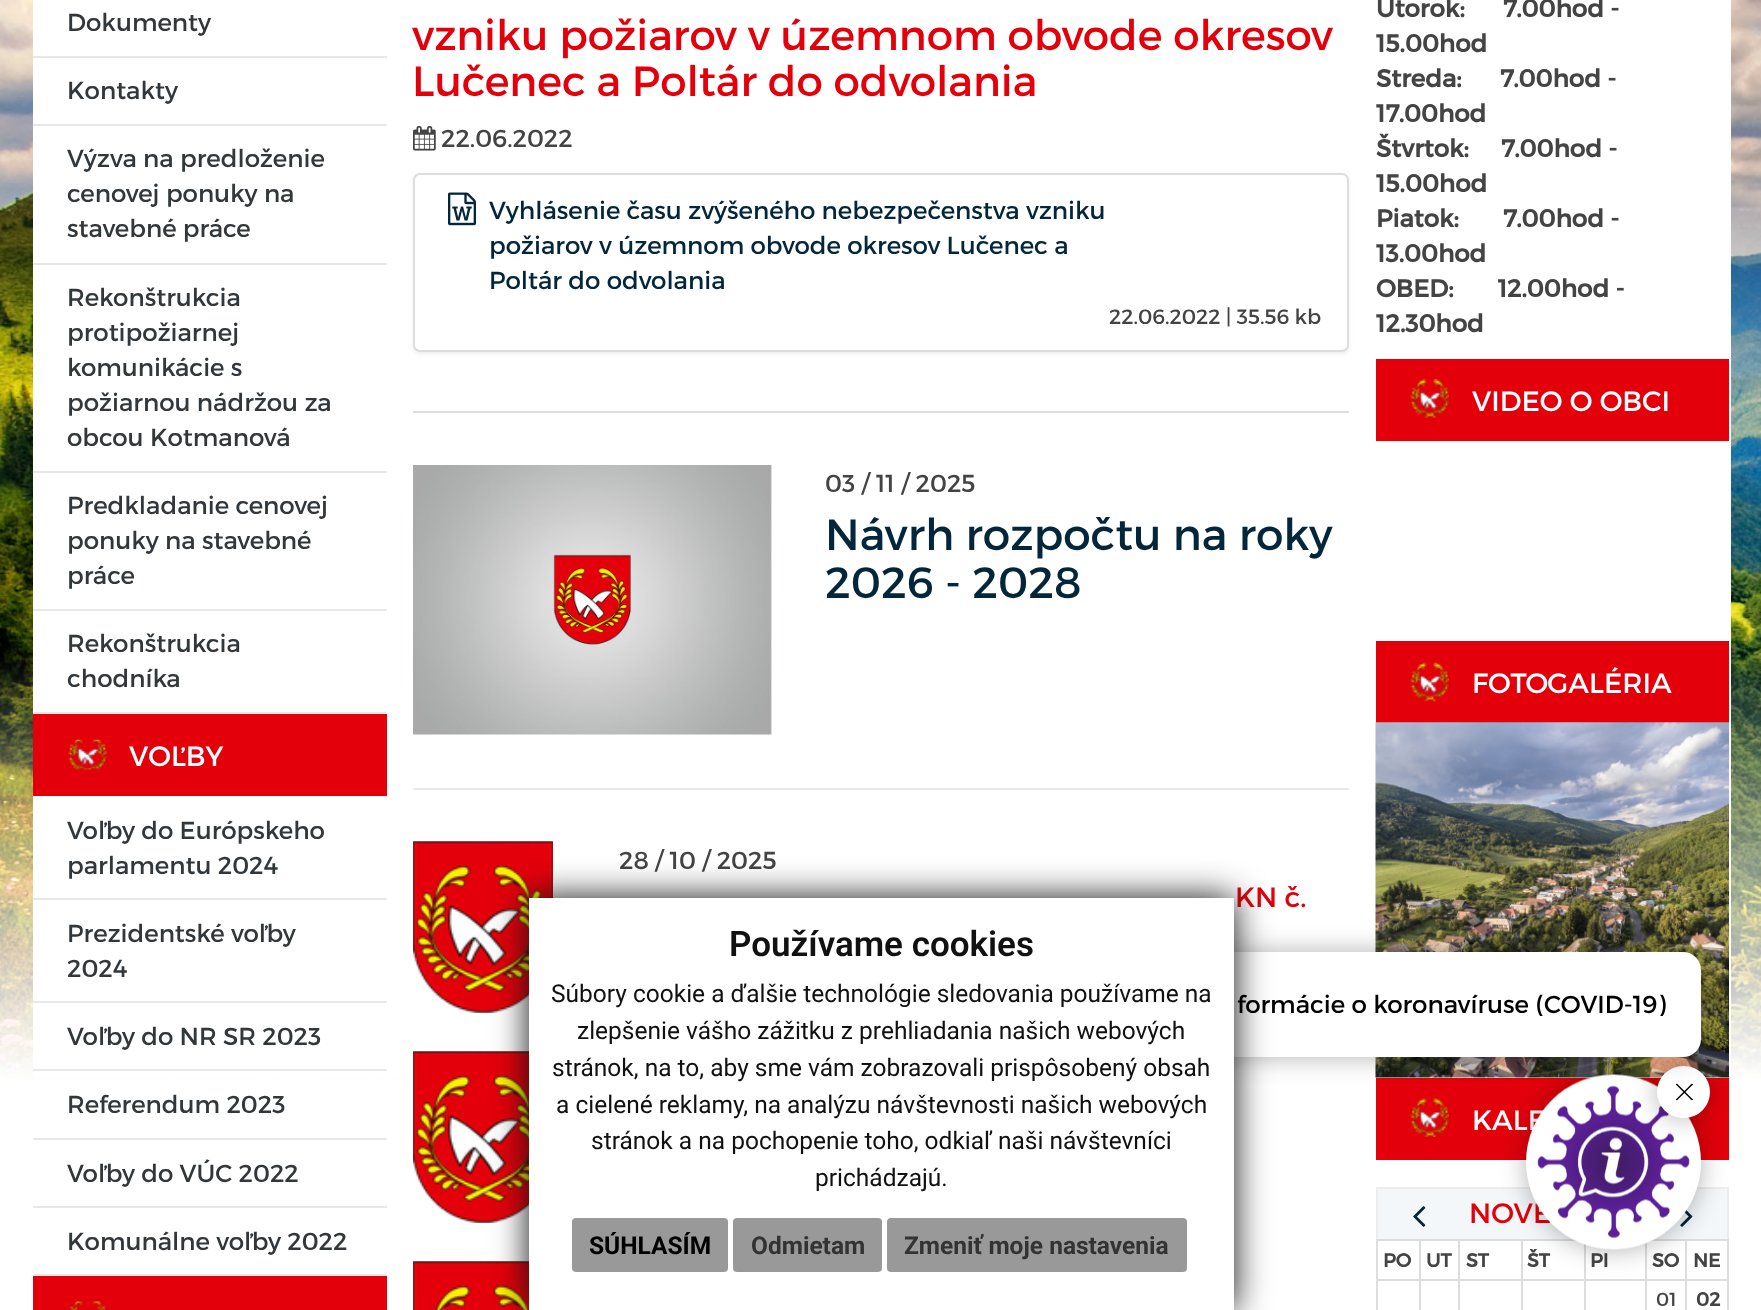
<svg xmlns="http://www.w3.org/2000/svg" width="1761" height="1310">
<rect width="100%" height="100%" fill="#fff"/>
<image x="0" y="0" width="1761" height="1310" href="media/1.png"/>
<rect x="33" width="1698" height="1078" fill="#fff"/>
<rect x="33" y="56" width="354" height="2" fill="#e8e8e8"/>
<text x="67" y="31" style="font-family:Montserrat;font-size:24.5px;fill:#32373b">Dokumenty</text>
<rect x="33" y="124" width="354" height="2" fill="#e8e8e8"/>
<text x="67" y="99" style="font-family:Montserrat;font-size:24.5px;fill:#32373b">Kontakty</text>
<rect x="33" y="263" width="354" height="2" fill="#e8e8e8"/>
<text x="67" y="167" style="font-family:Montserrat;font-size:24.5px;fill:#32373b">Výzva na predloženie</text>
<text x="67" y="202" style="font-family:Montserrat;font-size:24.5px;fill:#32373b">cenovej ponuky na</text>
<text x="67" y="237" style="font-family:Montserrat;font-size:24.5px;fill:#32373b">stavebné práce</text>
<rect x="33" y="471" width="354" height="2" fill="#e8e8e8"/>
<text x="67" y="306" style="font-family:Montserrat;font-size:24.5px;fill:#32373b">Rekonštrukcia</text>
<text x="67" y="341" style="font-family:Montserrat;font-size:24.5px;fill:#32373b">protipožiarnej</text>
<text x="67" y="376" style="font-family:Montserrat;font-size:24.5px;fill:#32373b">komunikácie s</text>
<text x="67" y="411" style="font-family:Montserrat;font-size:24.5px;fill:#32373b">požiarnou nádržou za</text>
<text x="67" y="446" style="font-family:Montserrat;font-size:24.5px;fill:#32373b">obcou Kotmanová</text>
<rect x="33" y="609" width="354" height="2" fill="#e8e8e8"/>
<text x="67" y="514" style="font-family:Montserrat;font-size:24.5px;fill:#32373b">Predkladanie cenovej</text>
<text x="67" y="549" style="font-family:Montserrat;font-size:24.5px;fill:#32373b">ponuky na stavebné</text>
<text x="67" y="584" style="font-family:Montserrat;font-size:24.5px;fill:#32373b">práce</text>
<rect x="33" y="712" width="354" height="2" fill="#e8e8e8"/>
<text x="67" y="652" style="font-family:Montserrat;font-size:24.5px;fill:#32373b">Rekonštrukcia</text>
<text x="67" y="687" style="font-family:Montserrat;font-size:24.5px;fill:#32373b">chodníka</text>
<rect x="33" y="714" width="354" height="82" fill="#e3000b"/>
<image x="68" y="739" width="39" height="31" href="media/2.png"/>
<text x="129" y="766" style="font-family:Montserrat;font-size:28px;fill:#fff">VOĽBY</text>
<rect x="33" y="898" width="354" height="2" fill="#e8e8e8"/>
<text x="67" y="839" style="font-family:Montserrat;font-size:24.5px;fill:#32373b">Voľby do Európskeho</text>
<text x="67" y="874" style="font-family:Montserrat;font-size:24.5px;fill:#32373b">parlamentu 2024</text>
<rect x="33" y="1001" width="354" height="2" fill="#e8e8e8"/>
<text x="67" y="942" style="font-family:Montserrat;font-size:24.5px;fill:#32373b">Prezidentské voľby</text>
<text x="67" y="977" style="font-family:Montserrat;font-size:24.5px;fill:#32373b">2024</text>
<rect x="33" y="1069" width="354" height="2" fill="#e8e8e8"/>
<text x="67" y="1045" style="font-family:Montserrat;font-size:24.5px;fill:#32373b">Voľby do NR SR 2023</text>
<rect x="33" y="1138" width="354" height="2" fill="#e8e8e8"/>
<text x="67" y="1113" style="font-family:Montserrat;font-size:24.5px;fill:#32373b">Referendum 2023</text>
<rect x="33" y="1206" width="354" height="2" fill="#e8e8e8"/>
<text x="67" y="1182" style="font-family:Montserrat;font-size:24.5px;fill:#32373b">Voľby do VÚC 2022</text>
<rect x="33" y="1274" width="354" height="2" fill="#e8e8e8"/>
<text x="67" y="1250" style="font-family:Montserrat;font-size:24.5px;fill:#32373b">Komunálne voľby 2022</text>
<rect x="33" y="1276" width="354" height="34" fill="#e3000b"/>
<image x="69" y="1301" width="38" height="9" href="media/3.png"/>
<text x="412" y="50" style="font-family:Montserrat;font-size:42px;fill:#e3000b">vzniku požiarov v územnom obvode okresov</text>
<text x="412" y="96" style="font-family:Montserrat;font-size:42px;fill:#e3000b">Lučenec a Poltár do odvolania</text>
<image x="413" y="126" width="23" height="25" href="media/4.png"/>
<text x="441" y="147" style="font-family:Montserrat;font-size:24.5px;fill:#444">22.06.2022</text>
<rect x="413" y="175" width="936" height="179" rx="7" fill="#00000012" filter="blur(2px)"/>
<rect x="414" y="174" width="934" height="177" rx="6" fill="#fff" stroke="#ddd" stroke-width="2"/>
<image x="448" y="192" width="28" height="34" href="media/5.png"/>
<text x="489" y="219" style="font-family:Montserrat;font-size:24.5px;fill:#04263b">Vyhlásenie času zvýšeného nebezpečenstva vzniku</text>
<text x="489" y="254" style="font-family:Montserrat;font-size:24.5px;fill:#04263b">požiarov v územnom obvode okresov Lučenec a</text>
<text x="489" y="289" style="font-family:Montserrat;font-size:24.5px;fill:#04263b">Poltár do odvolania</text>
<text x="1109" y="324" style="font-family:Montserrat;font-size:20.75px;fill:#444">22.06.2022 | 35.56 kb</text>
<rect x="413" y="411" width="936" height="2" fill="#ddd"/>
<image x="413" y="465" width="359" height="270" href="media/6.png"/>
<text x="825" y="492" style="font-family:Montserrat;font-size:24.5px;fill:#444">03 / 11 / 2025</text>
<text x="825" y="550" style="font-family:Montserrat;font-size:43.75px;fill:#04263b">Návrh rozpočtu na roky</text>
<text x="825" y="598" style="font-family:Montserrat;font-size:43.75px;fill:#04263b">2026 - 2028</text>
<rect x="413" y="788" width="936" height="2" fill="#e9e9e9"/>
<image x="413" y="841" width="140" height="172" href="media/7.png"/>
<text x="619" y="869" style="font-family:Montserrat;font-size:24.5px;fill:#444">28 / 10 / 2025</text>
<text x="1235" y="907" style="font-family:Montserrat;font-size:28px;fill:#e3000b">KN č.</text>
<image x="413" y="1051" width="116" height="172" href="media/8.png"/>
<image x="413" y="1261" width="116" height="49" href="media/9.png"/>
<text x="1376" y="17" style="font-family:Montserrat;font-size:24.5px;font-weight:bold;fill:#444">Utorok:</text>
<text x="1503" y="17" style="font-family:Montserrat;font-size:24.5px;font-weight:bold;fill:#444">7.00hod -</text>
<text x="1376" y="52" style="font-family:Montserrat;font-size:24.5px;font-weight:bold;fill:#444">15.00hod</text>
<text x="1376" y="87" style="font-family:Montserrat;font-size:24.5px;font-weight:bold;fill:#444">Streda:</text>
<text x="1500" y="87" style="font-family:Montserrat;font-size:24.5px;font-weight:bold;fill:#444">7.00hod -</text>
<text x="1376" y="122" style="font-family:Montserrat;font-size:24.5px;font-weight:bold;fill:#444">17.00hod</text>
<text x="1376" y="157" style="font-family:Montserrat;font-size:24.5px;font-weight:bold;fill:#444">Štvrtok:</text>
<text x="1501" y="157" style="font-family:Montserrat;font-size:24.5px;font-weight:bold;fill:#444">7.00hod -</text>
<text x="1376" y="192" style="font-family:Montserrat;font-size:24.5px;font-weight:bold;fill:#444">15.00hod</text>
<text x="1376" y="227" style="font-family:Montserrat;font-size:24.5px;font-weight:bold;fill:#444">Piatok:</text>
<text x="1503" y="227" style="font-family:Montserrat;font-size:24.5px;font-weight:bold;fill:#444">7.00hod -</text>
<text x="1376" y="262" style="font-family:Montserrat;font-size:24.5px;font-weight:bold;fill:#444">13.00hod</text>
<text x="1376" y="297" style="font-family:Montserrat;font-size:24.5px;font-weight:bold;fill:#444" xml:space="preserve">OBED:       12.00hod -</text>
<text x="1376" y="332" style="font-family:Montserrat;font-size:24.5px;font-weight:bold;fill:#444">12.30hod</text>
<rect x="1376" y="359" width="353" height="82" fill="#e3000b"/>
<image x="1410" y="379" width="39" height="39" href="media/10.png"/>
<text x="1472" y="411" style="font-family:Montserrat;font-size:28px;fill:#fff">VIDEO O OBCI</text>
<rect x="1376" y="641" width="353" height="82" fill="#e3000b"/>
<image x="1410" y="662" width="39" height="40" href="media/11.png"/>
<text x="1472" y="693" style="font-family:Montserrat;font-size:28px;fill:#fff">FOTOGALÉRIA</text>
<image x="1375" y="722" width="354" height="356" href="media/12.png"/>
<rect x="1376" y="1078" width="353" height="82" fill="#e3000b"/>
<image x="1410" y="1098" width="39" height="39" href="media/13.png"/>
<text x="1472" y="1130" style="font-family:Montserrat;font-size:28px;fill:#fff">KALE</text>
<rect x="1376" y="1187" width="353" height="2" fill="#ededed"/>
<rect x="1727" y="1187" width="2" height="52" fill="#ededed"/>
<rect x="1376" y="1187" width="2" height="52" fill="#ededed"/>
<rect x="1378" y="1189" width="195" height="50" fill="#f4f7f9"/>
<image x="1413" y="1206" width="13" height="21" href="media/14.png"/>
<rect x="1654" y="1189" width="73" height="50" fill="#f4f7f9"/>
<image x="1680" y="1210" width="13" height="17" href="media/15.png"/>
<text x="1469" y="1223" style="font-family:Montserrat;font-size:28px;fill:#e3000b">NOVE</text>
<rect x="1685" y="1279" width="44" height="2" fill="#ddd"/>
<rect x="1685" y="1279" width="2" height="31" fill="#ddd"/>
<rect x="1645" y="1279" width="42" height="2" fill="#ddd"/>
<rect x="1645" y="1279" width="2" height="31" fill="#ddd"/>
<rect x="1584" y="1279" width="63" height="2" fill="#ddd"/>
<rect x="1584" y="1279" width="2" height="31" fill="#ddd"/>
<rect x="1521" y="1279" width="65" height="2" fill="#ddd"/>
<rect x="1584" y="1239" width="2" height="42" fill="#ddd"/>
<rect x="1521" y="1239" width="65" height="2" fill="#ddd"/>
<rect x="1521" y="1279" width="2" height="31" fill="#ddd"/>
<rect x="1458" y="1279" width="65" height="2" fill="#ddd"/>
<rect x="1521" y="1239" width="2" height="42" fill="#ddd"/>
<rect x="1458" y="1239" width="65" height="2" fill="#ddd"/>
<rect x="1458" y="1279" width="2" height="31" fill="#ddd"/>
<rect x="1419" y="1279" width="41" height="2" fill="#ddd"/>
<rect x="1458" y="1239" width="2" height="42" fill="#ddd"/>
<rect x="1419" y="1239" width="41" height="2" fill="#ddd"/>
<rect x="1419" y="1279" width="2" height="31" fill="#ddd"/>
<rect x="1376" y="1279" width="45" height="2" fill="#ddd"/>
<rect x="1419" y="1239" width="2" height="42" fill="#ddd"/>
<rect x="1376" y="1239" width="45" height="2" fill="#ddd"/>
<rect x="1376" y="1279" width="2" height="31" fill="#ddd"/>
<rect x="1376" y="1239" width="2" height="42" fill="#ddd"/>
<text x="1383" y="1267" style="font-family:Montserrat;font-size:19px;font-weight:bold;fill:#444">PO</text>
<text x="1426" y="1267" style="font-family:Montserrat;font-size:19px;font-weight:bold;fill:#444">UT</text>
<text x="1466" y="1267" style="font-family:Montserrat;font-size:19px;font-weight:bold;fill:#444">ST</text>
<text x="1527" y="1267" style="font-family:Montserrat;font-size:19px;font-weight:bold;fill:#444">ŠT</text>
<text x="1590" y="1267" style="font-family:Montserrat;font-size:19px;font-weight:bold;fill:#444">PI</text>
<rect x="1685" y="1239" width="44" height="2" fill="#ddd"/>
<rect x="1685" y="1239" width="2" height="42" fill="#ddd"/>
<rect x="1645" y="1239" width="42" height="2" fill="#ddd"/>
<rect x="1645" y="1239" width="2" height="42" fill="#ddd"/>
<text x="1652" y="1267" style="font-family:Montserrat;font-size:19px;font-weight:bold;fill:#444">SO</text>
<rect x="1727" y="1279" width="2" height="31" fill="#ddd"/>
<rect x="1727" y="1239" width="2" height="42" fill="#ddd"/>
<text x="1693" y="1267" style="font-family:Montserrat;font-size:19px;font-weight:bold;fill:#444">NE</text>
<text x="1656" y="1306" style="font-family:Montserrat;font-size:19px;fill:#444">01</text>
<text x="1696" y="1306" style="font-family:Montserrat;font-size:19px;font-weight:bold;fill:#444">02</text>
<rect x="1526" y="1075" width="175" height="175" rx="87.5" fill="#0000004d" filter="blur(13px)"/>
<image x="1526" y="1074" width="175" height="176" href="media/17.png"/>
<rect x="1657" y="1066" width="53" height="52" rx="26" fill="#0000004d" filter="blur(13px)"/>
<rect x="1657" y="1066" width="53" height="52" rx="26" fill="#fff"/>
<image x="1675" y="1083" width="18" height="18" href="media/16.png"/>
<rect x="1073" y="952" width="628" height="105" rx="18" fill="#0000004d" filter="blur(13px)"/>
<rect x="1073" y="952" width="628" height="105" rx="18" fill="#fff"/>
<rect x="529" y="898" width="705" height="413" fill="#111" filter="blur(17.5px)"/>
<rect x="529" y="898" width="705" height="412" fill="#fff"/>
<text x="729" y="956" style="font-family:Roboto;font-size:35px;font-weight:600;fill:#111">Používame cookies</text>
<text x="551" y="1002" style="font-family:Roboto;font-size:24.5px;fill:#111">Súbory cookie a ďalšie technológie sledovania používame na</text>
<text x="577" y="1039" style="font-family:Roboto;font-size:24.5px;fill:#111">zlepšenie vášho zážitku z prehliadania našich webových</text>
<text x="552" y="1076" style="font-family:Roboto;font-size:24.5px;fill:#111">stránok, na to, aby sme vám zobrazovali prispôsobený obsah</text>
<text x="556" y="1113" style="font-family:Roboto;font-size:24.5px;fill:#111">a cielené reklamy, na analýzu návštevnosti našich webových</text>
<text x="591" y="1149" style="font-family:Roboto;font-size:24.5px;fill:#111">stránok a na pochopenie toho, odkiaľ naši návštevníci</text>
<text x="815" y="1186" style="font-family:Roboto;font-size:24.5px;fill:#111">prichádzajú.</text>
<rect x="572" y="1218" width="156" height="54" rx="4" fill="#999"/>
<text x="589" y="1254" style="font-family:Roboto;font-size:24.5px;font-weight:bold;fill:#000">SÚHLASÍM</text>
<rect x="733" y="1218" width="149" height="54" rx="4" fill="#999"/>
<text x="751" y="1254" style="font-family:Roboto;font-size:24.5px;font-weight:bold;fill:#333">Odmietam</text>
<rect x="887" y="1218" width="300" height="54" rx="4" fill="#999"/>
<text x="904" y="1254" style="font-family:Roboto;font-size:24.5px;font-weight:bold;fill:#333">Zmeniť moje nastavenia</text>
<text x="1237" y="1013" style="font-family:Montserrat;font-size:24.5px;fill:#000">formácie o koronavíruse (COVID-19)</text>
</svg>
